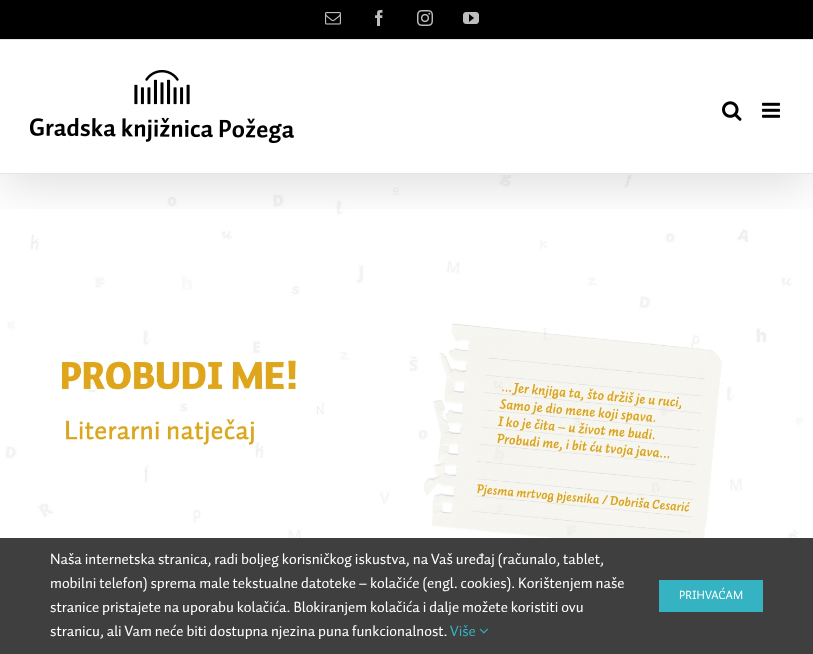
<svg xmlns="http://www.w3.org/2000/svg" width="813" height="654">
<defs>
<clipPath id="clip1"><rect x="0" y="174" width="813" height="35"/></clipPath>
</defs>
<rect width="100%" height="100%" fill="#fff"/>
<image x="0" y="175" width="813" height="363" href="media/8.png"/>
<g clip-path="url(#clip1)">
<rect x="2" y="12" width="809" height="170" fill="#00000024" filter="blur(25px)"/>
</g>
<rect width="813" height="39" fill="#000"/>
<rect y="39" width="813" height="1" fill="#e5e5e5"/>
<image x="325" y="12" width="16" height="13" href="media/1.png"/>
<image x="375" y="10" width="8" height="16" href="media/2.png"/>
<image x="417" y="10" width="16" height="16" href="media/3.png"/>
<image x="463" y="12" width="16" height="12" href="media/4.png"/>
<rect y="173" width="813" height="1" fill="#e5e5e5"/>
<image x="30" y="70" width="264" height="73" href="media/5.png"/>
<image x="722" y="101" width="20" height="20" href="media/6.png"/>
<image x="762" y="102" width="18" height="16" href="media/7.png"/>
<rect y="538" width="813" height="116" fill="#3f3f3f"/>
<text x="50" y="564" style="font-family:'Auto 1';font-size:15px;fill:#fff">Naša internetska stranica, radi boljeg korisničkog iskustva, na Vaš uređaj (računalo, tablet,</text>
<text x="50" y="588" style="font-family:'Auto 1';font-size:15px;fill:#fff">mobilni telefon) sprema male tekstualne datoteke – kolačiće (engl. cookies). Korištenjem naše</text>
<text x="50" y="612" style="font-family:'Auto 1';font-size:15px;fill:#fff">stranice pristajete na uporabu kolačića. Blokiranjem kolačića i dalje možete koristiti ovu</text>
<text x="50" y="636" style="font-family:'Auto 1';font-size:15px;fill:#fff">stranicu, ali Vam neće biti dostupna njezina puna funkcionalnost.</text>
<text x="450" y="636" style="font-family:'Auto 1';font-size:15px;fill:#35b3c2">Više</text>
<image x="479" y="628" width="9" height="6" href="media/9.png"/>
<rect x="659" y="580" width="104" height="32" fill="#35b3c2"/>
<text x="679" y="599" style="font-family:'Auto 1';font-size:12px;fill:#fff">PRIHVAĆAM</text>
</svg>
